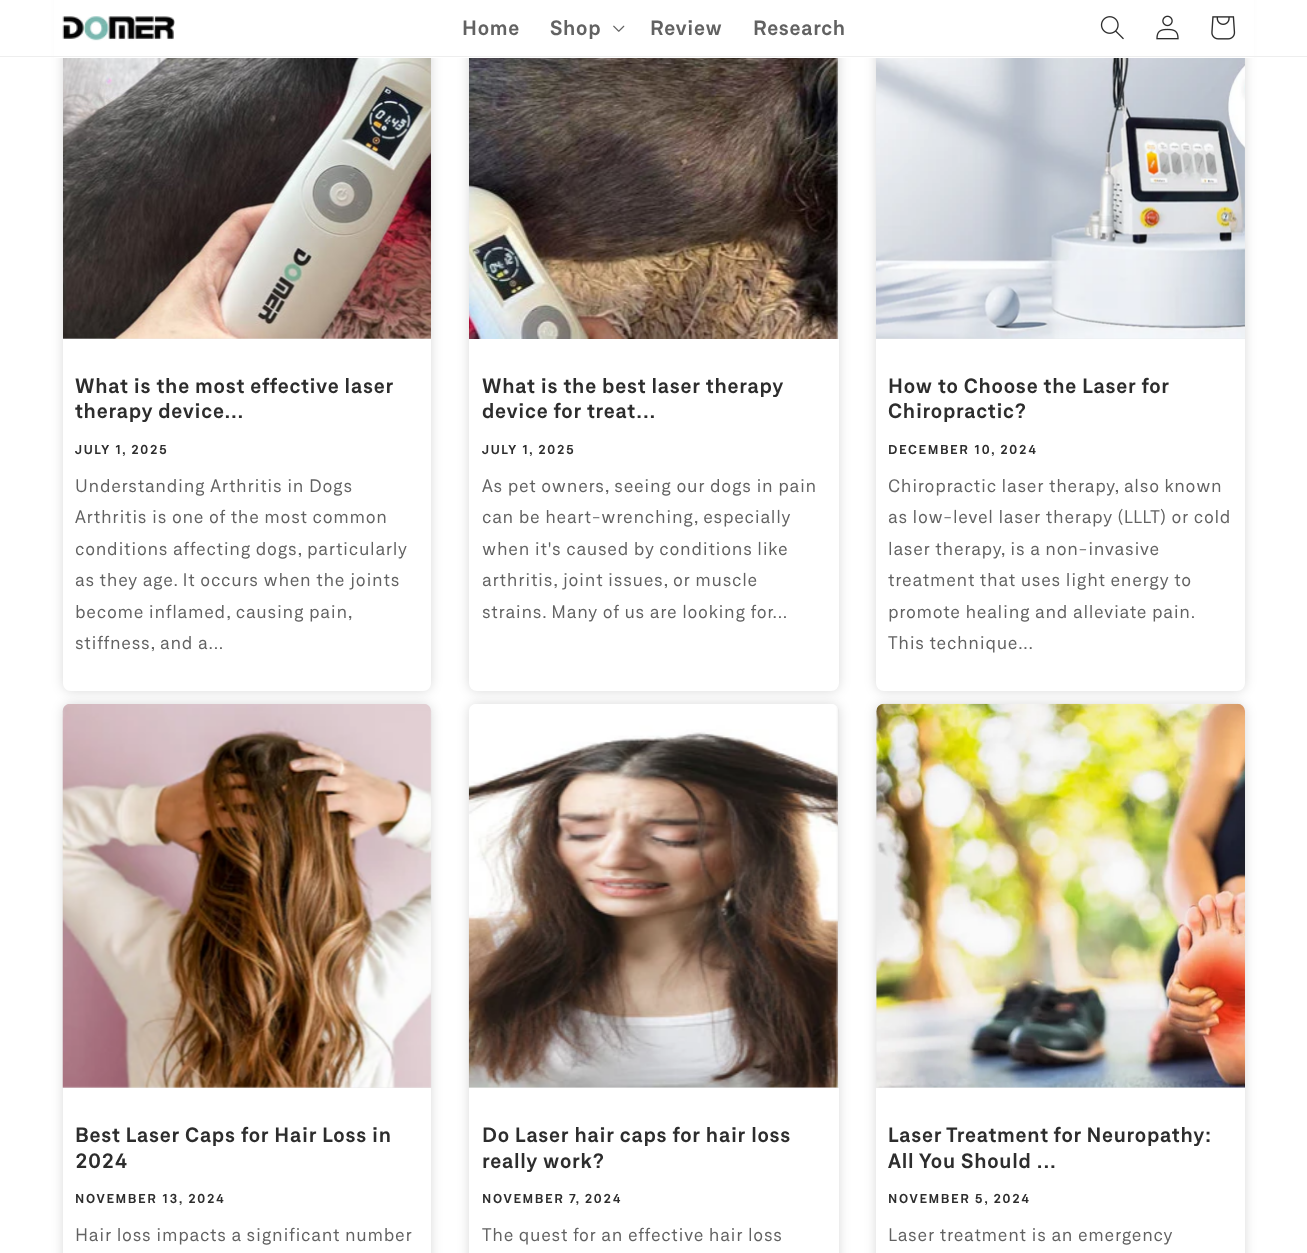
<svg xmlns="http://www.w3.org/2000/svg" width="1307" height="1253">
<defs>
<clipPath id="clip1"><path d="M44 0h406v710h-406zm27-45h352c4.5 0 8 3.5 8 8v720c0 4.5-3.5 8-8 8h-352c-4.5 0-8-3.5-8-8v-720c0-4.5 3.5-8 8-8z" clip-rule="evenodd"/></clipPath>
<clipPath id="clip2"><path d="M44 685h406v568h-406zm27 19h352c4.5 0 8 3.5 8 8v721c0 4.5-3.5 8-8 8h-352c-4.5 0-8-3.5-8-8v-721c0-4.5 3.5-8 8-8z" clip-rule="evenodd"/></clipPath>
</defs>
<rect width="100%" height="100%" fill="#fff"/>
<g clip-path="url(#clip1)">
<rect x="63" y="-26" width="368" height="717" rx="8" fill="#00000026" filter="blur(6px)"/>
</g>
<rect x="469" y="-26" width="370" height="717" rx="8" fill="#00000026" filter="blur(6px)"/>
<rect x="469" y="-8" width="370" height="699" rx="8" fill="#fff"/>
<rect x="876" y="-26" width="369" height="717" rx="8" fill="#00000026" filter="blur(6px)"/>
<rect x="876" y="-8" width="369" height="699" rx="8" fill="#fff"/>
<rect x="54" width="1200" height="58" fill="#fff"/>
<rect y="56" width="1307" height="1" fill="#eee"/>
<image x="62" y="16" width="113" height="25" href="media/1.png"/>
<text x="462" y="35" style="font-family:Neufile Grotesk;font-size:20px;font-weight:600;letter-spacing:0.75px;fill:#626262">Home</text>
<text x="550" y="35" style="font-family:Neufile Grotesk;font-size:20px;font-weight:600;letter-spacing:0.75px;fill:#626262">Shop</text>
<image x="613" y="25" width="12" height="7" href="media/2.png"/>
<text x="650" y="35" style="font-family:Neufile Grotesk;font-size:20px;font-weight:600;letter-spacing:0.75px;fill:#626262">Review</text>
<text x="753" y="35" style="font-family:Neufile Grotesk;font-size:20px;font-weight:600;letter-spacing:0.75px;fill:#626262">Research</text>
<image x="1100" y="16" width="24" height="24" href="media/3.png"/>
<image x="1156" y="15" width="23" height="25" href="media/4.png"/>
<image x="1211" y="16" width="25" height="24" href="media/5.png"/>
<rect x="63" y="58" width="368" height="281" fill="#eaeaea"/>
<image x="63" y="58" width="368" height="281" href="media/6.png"/>
<text x="75" y="393" style="font-family:Neufile Grotesk;font-size:20px;font-weight:600;letter-spacing:0.8px;fill:#2d2d2d">What is the most effective laser</text>
<text x="75" y="418" style="font-family:Neufile Grotesk;font-size:20px;font-weight:600;letter-spacing:0.8px;fill:#2d2d2d">therapy device...</text>
<text x="75" y="454" style="font-family:Neufile Grotesk;font-size:12.5px;font-weight:600;letter-spacing:1.6px;fill:#2d2d2d">JULY 1, 2025</text>
<text x="75" y="492" style="font-family:Neufile Grotesk;font-size:17.5px;letter-spacing:0.75px;fill:#626262">Understanding Arthritis in Dogs</text>
<text x="75" y="523" style="font-family:Neufile Grotesk;font-size:17.5px;letter-spacing:0.75px;fill:#626262">Arthritis is one of the most common</text>
<text x="75" y="555" style="font-family:Neufile Grotesk;font-size:17.5px;letter-spacing:0.75px;fill:#626262">conditions affecting dogs, particularly</text>
<text x="75" y="586" style="font-family:Neufile Grotesk;font-size:17.5px;letter-spacing:0.75px;fill:#626262">as they age. It occurs when the joints</text>
<text x="75" y="618" style="font-family:Neufile Grotesk;font-size:17.5px;letter-spacing:0.75px;fill:#626262">become inflamed, causing pain,</text>
<text x="75" y="649" style="font-family:Neufile Grotesk;font-size:17.5px;letter-spacing:0.75px;fill:#626262">stiffness, and a...</text>
<rect x="836" y="58" width="3" height="281" fill="#eaeaea"/>
<image x="469" y="58" width="369" height="281" href="media/7.png"/>
<text x="482" y="393" style="font-family:Neufile Grotesk;font-size:20px;font-weight:600;letter-spacing:0.8px;fill:#2d2d2d">What is the best laser therapy</text>
<text x="482" y="418" style="font-family:Neufile Grotesk;font-size:20px;font-weight:600;letter-spacing:0.8px;fill:#2d2d2d">device for treat...</text>
<text x="482" y="454" style="font-family:Neufile Grotesk;font-size:12.5px;font-weight:600;letter-spacing:1.6px;fill:#2d2d2d">JULY 1, 2025</text>
<text x="482" y="492" style="font-family:Neufile Grotesk;font-size:17.5px;letter-spacing:0.75px;fill:#626262">As pet owners, seeing our dogs in pain</text>
<text x="482" y="523" style="font-family:Neufile Grotesk;font-size:17.5px;letter-spacing:0.75px;fill:#626262">can be heart-wrenching, especially</text>
<text x="482" y="555" style="font-family:Neufile Grotesk;font-size:17.5px;letter-spacing:0.75px;fill:#626262">when it's caused by conditions like</text>
<text x="482" y="586" style="font-family:Neufile Grotesk;font-size:17.5px;letter-spacing:0.75px;fill:#626262">arthritis, joint issues, or muscle</text>
<text x="482" y="618" style="font-family:Neufile Grotesk;font-size:17.5px;letter-spacing:0.75px;fill:#626262">strains. Many of us are looking for...</text>
<rect x="876" y="58" width="369" height="281" fill="#eaeaea"/>
<image x="876" y="58" width="369" height="281" href="media/8.png"/>
<text x="888" y="393" style="font-family:Neufile Grotesk;font-size:20px;font-weight:600;letter-spacing:0.8px;fill:#2d2d2d">How to Choose the Laser for</text>
<text x="888" y="418" style="font-family:Neufile Grotesk;font-size:20px;font-weight:600;letter-spacing:0.8px;fill:#2d2d2d">Chiropractic?</text>
<text x="888" y="454" style="font-family:Neufile Grotesk;font-size:12.5px;font-weight:600;letter-spacing:1.6px;fill:#2d2d2d">DECEMBER 10, 2024</text>
<text x="888" y="492" style="font-family:Neufile Grotesk;font-size:17.5px;letter-spacing:0.75px;fill:#626262">Chiropractic laser therapy, also known</text>
<text x="888" y="523" style="font-family:Neufile Grotesk;font-size:17.5px;letter-spacing:0.75px;fill:#626262">as low-level laser therapy (LLLT) or cold</text>
<text x="888" y="555" style="font-family:Neufile Grotesk;font-size:17.5px;letter-spacing:0.75px;fill:#626262">laser therapy, is a non-invasive</text>
<text x="888" y="586" style="font-family:Neufile Grotesk;font-size:17.5px;letter-spacing:0.75px;fill:#626262">treatment that uses light energy to</text>
<text x="888" y="618" style="font-family:Neufile Grotesk;font-size:17.5px;letter-spacing:0.75px;fill:#626262">promote healing and alleviate pain.</text>
<text x="888" y="649" style="font-family:Neufile Grotesk;font-size:17.5px;letter-spacing:0.75px;fill:#626262">This technique...</text>
<g clip-path="url(#clip2)">
<rect x="63" y="704" width="368" height="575" rx="8" fill="#00000026" filter="blur(6px)"/>
</g>
<path d="M71 704h352c4.5 0 8 3.5 8 8v376h-368v-376c0-4.5 3.5-8 8-8z" fill="#eaeaea"/>
<image x="62" y="704" width="370" height="384" href="media/9.png"/>
<text x="75" y="1142" style="font-family:Neufile Grotesk;font-size:20px;font-weight:600;letter-spacing:0.8px;fill:#2d2d2d">Best Laser Caps for Hair Loss in</text>
<text x="75" y="1168" style="font-family:Neufile Grotesk;font-size:20px;font-weight:600;letter-spacing:0.8px;fill:#2d2d2d">2024</text>
<text x="75" y="1203" style="font-family:Neufile Grotesk;font-size:12.5px;font-weight:600;letter-spacing:1.6px;fill:#2d2d2d">NOVEMBER 13, 2024</text>
<text x="75" y="1241" style="font-family:Neufile Grotesk;font-size:17.5px;letter-spacing:0.75px;fill:#626262">Hair loss impacts a significant number</text>
<rect x="469" y="704" width="370" height="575" rx="8" fill="#00000026" filter="blur(6px)"/>
<rect x="469" y="704" width="370" height="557" rx="8" fill="#fff"/>
<path d="M477 704h354c4.5 0 8 3.5 8 8v376h-370v-376c0-4.5 3.5-8 8-8z" fill="#2d2d2d1a"/>
<image x="468" y="704" width="370" height="384" href="media/10.png"/>
<text x="482" y="1142" style="font-family:Neufile Grotesk;font-size:20px;font-weight:600;letter-spacing:0.8px;fill:#2d2d2d">Do Laser hair caps for hair loss</text>
<text x="482" y="1168" style="font-family:Neufile Grotesk;font-size:20px;font-weight:600;letter-spacing:0.8px;fill:#2d2d2d">really work?</text>
<text x="482" y="1203" style="font-family:Neufile Grotesk;font-size:12.5px;font-weight:600;letter-spacing:1.6px;fill:#2d2d2d">NOVEMBER 7, 2024</text>
<text x="482" y="1241" style="font-family:Neufile Grotesk;font-size:17.5px;letter-spacing:0.75px;fill:#626262">The quest for an effective hair loss</text>
<rect x="876" y="704" width="369" height="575" rx="8" fill="#00000026" filter="blur(6px)"/>
<rect x="876" y="704" width="369" height="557" rx="8" fill="#fff"/>
<path d="M884 704h353c4.5 0 8 3.5 8 8v376h-369v-376c0-4.5 3.5-8 8-8z" fill="#2d2d2d1a"/>
<image x="876" y="703" width="369" height="385" href="media/11.png"/>
<text x="888" y="1142" word-spacing="-0.5" style="font-family:Neufile Grotesk;font-size:20px;font-weight:600;letter-spacing:0.8px;fill:#2d2d2d">Laser Treatment for Neuropathy:</text>
<text x="888" y="1168" style="font-family:Neufile Grotesk;font-size:20px;font-weight:600;letter-spacing:0.8px;fill:#2d2d2d">All You Should ...</text>
<text x="888" y="1203" style="font-family:Neufile Grotesk;font-size:12.5px;font-weight:600;letter-spacing:1.6px;fill:#2d2d2d">NOVEMBER 5, 2024</text>
<text x="888" y="1241" style="font-family:Neufile Grotesk;font-size:17.5px;letter-spacing:0.75px;fill:#626262">Laser treatment is an emergency</text>
</svg>
